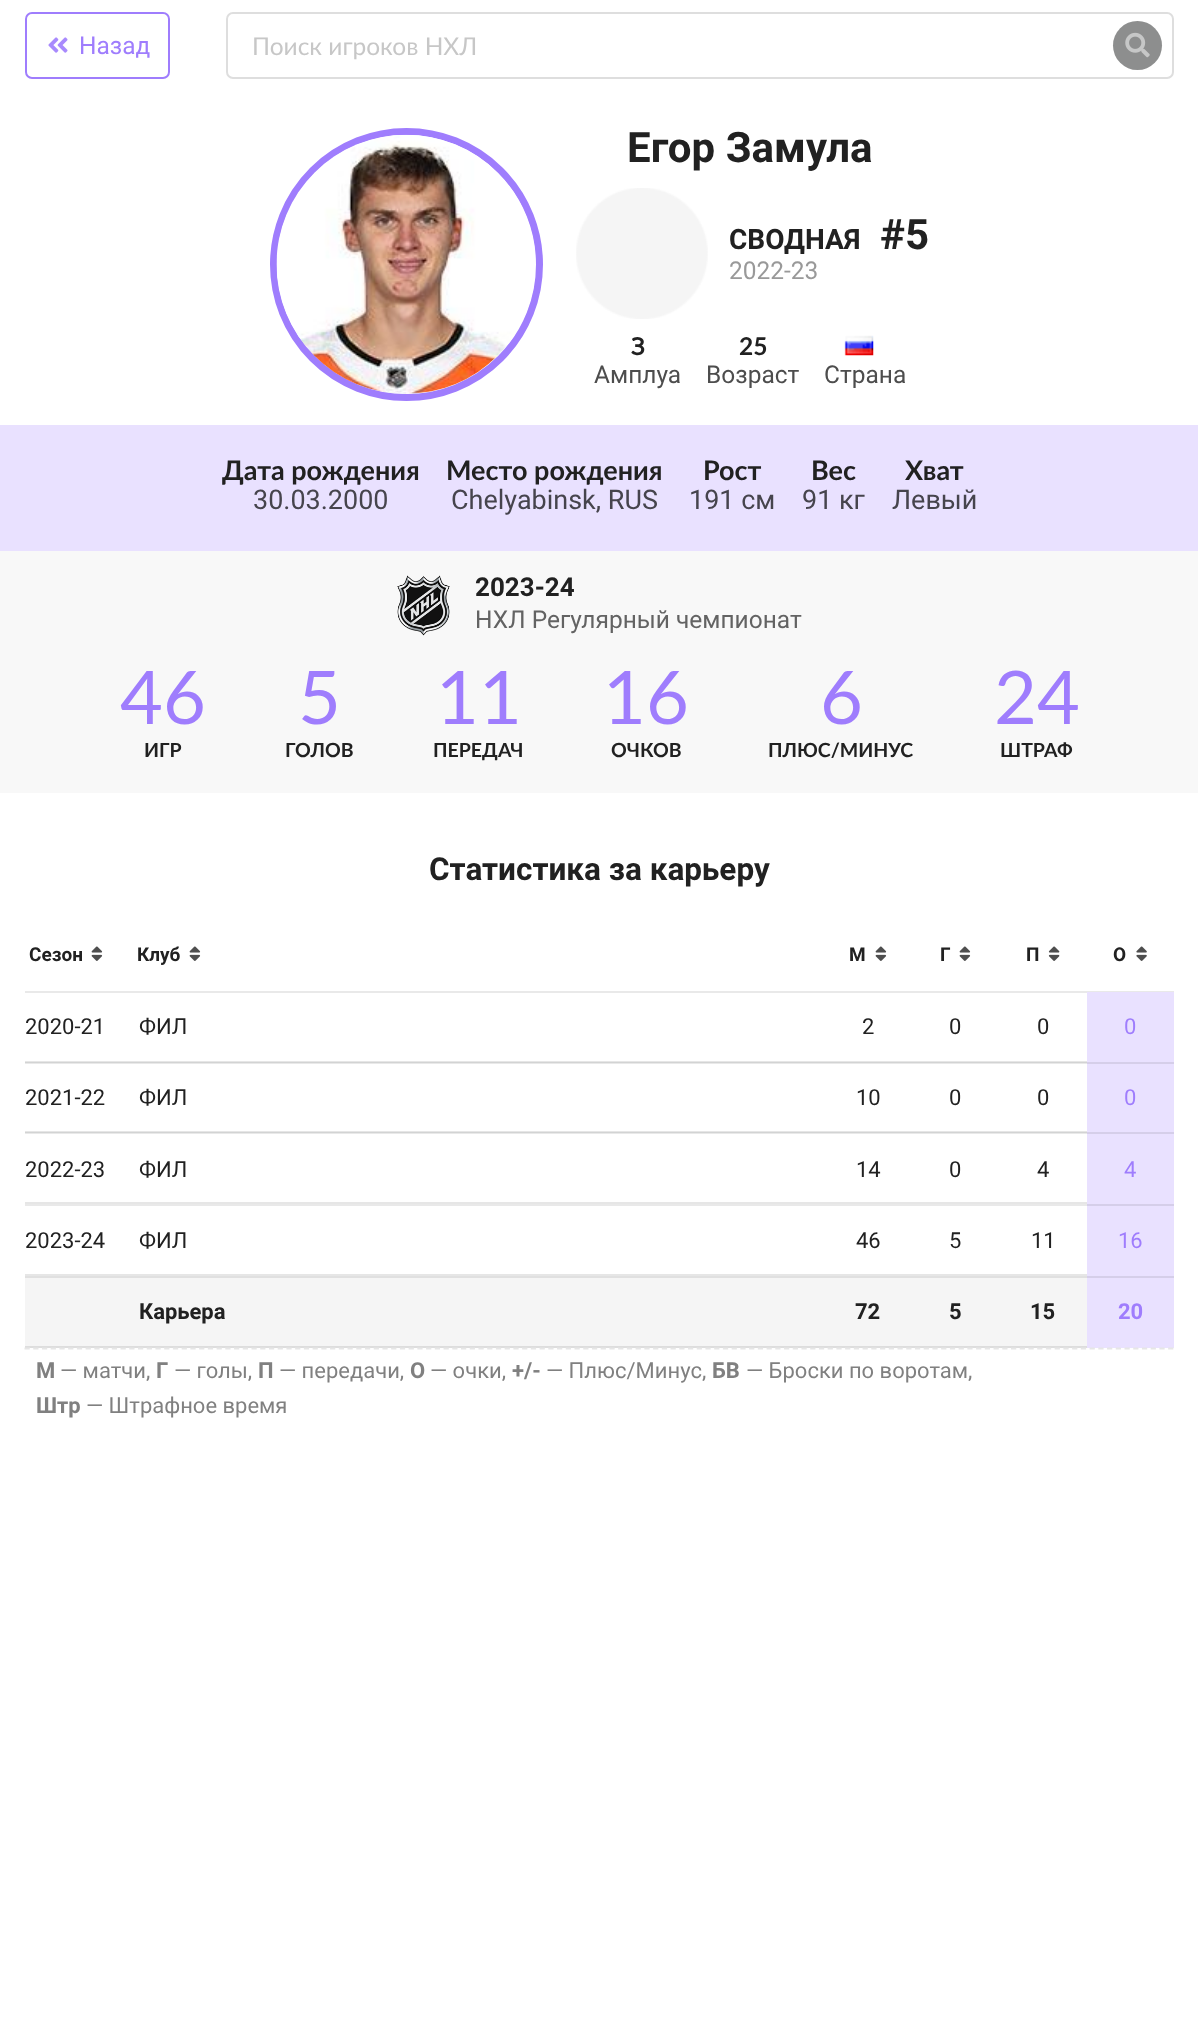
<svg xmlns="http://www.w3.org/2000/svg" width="1198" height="2017">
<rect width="100%" height="100%" fill="#fff"/>
<rect x="25" y="1133" width="1062" height="1" fill="#e9e9e9"/>
<rect x="25" y="1063" width="1062" height="1" fill="#e9e9e9"/>
<rect x="26" y="13" width="143" height="65" rx="6" fill="none" stroke="#9f7dfd" stroke-width="2"/>
<image x="48" y="37" width="20" height="16" href="media/1.png"/>
<text x="79" y="54" style="font-family:Roboto;font-size:24.5px;fill:#9f7dfd">Назад</text>
<rect x="227" y="13" width="946" height="65" rx="6" fill="none" stroke="#dedede" stroke-width="2"/>
<text x="252" y="55" style="font-family:Lato;font-size:24.5px;fill:#c7c7c7">Поиск игроков НХЛ</text>
<circle cx="1137.5" cy="45.5" r="24.5" fill="#8d8e8e"/>
<image x="1125" y="32" width="25" height="26" href="media/2.png"/>
<circle cx="406.5" cy="264.5" r="133" fill="none" stroke="#9f7dfd" stroke-width="7"/>
<image x="276" y="134" width="259" height="260" href="media/3.png"/>
<text x="627" y="162" style="font-family:Roboto;font-size:42px;font-weight:bold;fill:#212121">Егор Замула</text>
<image x="576" y="188" width="132" height="131" href="media/4.png"/>
<text x="729" y="249" style="font-family:Roboto;font-size:28px;font-weight:bold;fill:#212121">СВОДНАЯ</text>
<text x="880" y="249" style="font-family:Roboto;font-size:42px;font-weight:bold;fill:#212121">#5</text>
<text x="729" y="279" style="font-family:Roboto;font-size:24.5px;fill:#999">2022-23</text>
<text x="631" y="355" style="font-family:Lato;font-size:24.5px;font-weight:bold;fill:#212121">З</text>
<text x="594" y="383" style="font-family:Roboto;font-size:24.5px;fill:#4d4d4d">Амплуа</text>
<text x="739" y="355" style="font-family:Lato;font-size:24.5px;font-weight:bold;fill:#212121">25</text>
<text x="706" y="383" style="font-family:Roboto;font-size:24.5px;fill:#4d4d4d">Возраст</text>
<image x="844" y="335" width="30" height="21" href="media/5.png"/>
<text x="824" y="383" style="font-family:Roboto;font-size:24.5px;fill:#4d4d4d">Страна</text>
<rect y="425" width="1198" height="126" fill="#e9e1ff"/>
<text x="222" y="480" style="font-family:Lato;font-size:27px;font-weight:bold;fill:#212121">Дата рождения</text>
<text x="253" y="509" style="font-family:Roboto;font-size:27px;fill:#46444d">30.03.2000</text>
<text x="446" y="480" style="font-family:Lato;font-size:27px;font-weight:bold;fill:#212121">Место рождения</text>
<text x="451" y="509" style="font-family:Roboto;font-size:27px;fill:#46444d">Chelyabinsk, RUS</text>
<text x="703" y="480" style="font-family:Lato;font-size:27px;font-weight:bold;fill:#212121">Рост</text>
<text x="689" y="509" style="font-family:Roboto;font-size:27px;fill:#46444d">191 см</text>
<text x="811" y="480" style="font-family:Lato;font-size:27px;font-weight:bold;fill:#212121">Вес</text>
<text x="802" y="509" style="font-family:Roboto;font-size:27px;fill:#46444d">91 кг</text>
<text x="905" y="480" style="font-family:Lato;font-size:27px;font-weight:bold;fill:#212121">Хват</text>
<text x="892" y="509" style="font-family:Roboto;font-size:27px;fill:#46444d">Левый</text>
<rect y="551" width="1198" height="242" fill="#f8f8f8"/>
<image x="397" y="575" width="53" height="61" href="media/6.png"/>
<text x="475" y="596" style="font-family:Roboto;font-size:26px;font-weight:bold;fill:#212121">2023-24</text>
<text x="475" y="628" style="font-family:Roboto;font-size:24.5px;fill:#636363">НХЛ Регулярный чемпионат</text>
<text x="120" y="724" style="font-family:Lato;font-size:74px;fill:#9f7dfd">46</text>
<text x="144" y="757" style="font-family:Lato;font-size:19.5px;font-weight:bold;fill:#212121">ИГР</text>
<text x="298" y="724" style="font-family:Lato;font-size:74px;fill:#9f7dfd">5</text>
<text x="285" y="757" style="font-family:Lato;font-size:19.5px;font-weight:bold;fill:#212121">ГОЛОВ</text>
<text x="436" y="724" style="font-family:Lato;font-size:74px;fill:#9f7dfd">11</text>
<text x="433" y="757" style="font-family:Lato;font-size:19.5px;font-weight:bold;fill:#212121">ПЕРЕДАЧ</text>
<text x="603" y="724" style="font-family:Lato;font-size:74px;fill:#9f7dfd">16</text>
<text x="611" y="757" style="font-family:Lato;font-size:19.5px;font-weight:bold;fill:#212121">ОЧКОВ</text>
<text x="820" y="724" style="font-family:Lato;font-size:74px;fill:#9f7dfd">6</text>
<text x="768" y="757" style="font-family:Lato;font-size:19.5px;font-weight:bold;fill:#212121">ПЛЮС/МИНУС</text>
<text x="994" y="724" style="font-family:Lato;font-size:74px;fill:#9f7dfd">24</text>
<text x="1000" y="757" style="font-family:Lato;font-size:19.5px;font-weight:bold;fill:#212121">ШТРАФ</text>
<text x="429" y="880" style="font-family:Roboto;font-size:31.5px;font-weight:bold;fill:#212121">Статистика за карьеру</text>
<rect x="25" y="991" width="1062" height="2" fill="#e9e9e9"/>
<text x="29" y="961" style="font-family:Roboto;font-size:19px;font-weight:bold;fill:#212121">Сезон</text>
<image x="91" y="946" width="12" height="15" href="media/7.png"/>
<text x="137" y="961" style="font-family:Roboto;font-size:19px;font-weight:bold;fill:#212121">Клуб</text>
<image x="189" y="946" width="12" height="15" href="media/7.png"/>
<text x="849" y="961" style="font-family:Roboto;font-size:19px;font-weight:bold;fill:#212121">М</text>
<image x="875" y="946" width="12" height="15" href="media/7.png"/>
<text x="940" y="961" style="font-family:Roboto;font-size:19px;font-weight:bold;fill:#212121">Г</text>
<image x="959" y="946" width="12" height="15" href="media/7.png"/>
<text x="1026" y="961" style="font-family:Roboto;font-size:19px;font-weight:bold;fill:#212121">П</text>
<image x="1048" y="946" width="12" height="15" href="media/8.png"/>
<rect x="1087" y="991" width="87" height="1" fill="#e9e9e9"/>
<text x="1113" y="961" style="font-family:Roboto;font-size:19px;font-weight:bold;fill:#212121">О</text>
<image x="1136" y="946" width="11" height="15" href="media/9.png"/>
<rect x="25" y="1061" width="1062" height="1" fill="#e6e6e6"/>
<rect x="25" y="1062" width="1062" height="1" fill="#d2d3d3"/>
<text x="25" y="1034" style="font-family:Roboto;font-size:22px;fill:#212121">2020-21</text>
<text x="139" y="1034" style="font-family:Roboto;font-size:22px;fill:#212121">ФИЛ</text>
<text x="862" y="1034" style="font-family:Roboto;font-size:22px;fill:#212121">2</text>
<text x="949" y="1034" style="font-family:Roboto;font-size:22px;fill:#212121">0</text>
<text x="1037" y="1034" style="font-family:Roboto;font-size:22px;fill:#212121">0</text>
<rect x="1087" y="992" width="87" height="70" fill="#e9e1ff"/>
<text x="1124" y="1034" style="font-family:Roboto;font-size:22px;fill:#9f7dfd">0</text>
<rect x="25" y="1131" width="1062" height="1" fill="#e6e6e6"/>
<rect x="25" y="1132" width="1062" height="1" fill="#d2d3d3"/>
<text x="25" y="1105" style="font-family:Roboto;font-size:22px;fill:#212121">2021-22</text>
<text x="139" y="1105" style="font-family:Roboto;font-size:22px;fill:#212121">ФИЛ</text>
<text x="856" y="1105" style="font-family:Roboto;font-size:22px;fill:#212121">10</text>
<text x="949" y="1105" style="font-family:Roboto;font-size:22px;fill:#212121">0</text>
<text x="1037" y="1105" style="font-family:Roboto;font-size:22px;fill:#212121">0</text>
<rect x="1087" y="1064" width="87" height="68" fill="#e9e1ff"/>
<rect x="1087" y="1062" width="87" height="2" fill="#d5cee9"/>
<text x="1124" y="1105" style="font-family:Roboto;font-size:22px;fill:#9f7dfd">0</text>
<rect x="25" y="1202" width="1062" height="2" fill="#e6e6e6"/>
<text x="25" y="1177" style="font-family:Roboto;font-size:22px;fill:#212121">2022-23</text>
<text x="139" y="1177" style="font-family:Roboto;font-size:22px;fill:#212121">ФИЛ</text>
<text x="856" y="1177" style="font-family:Roboto;font-size:22px;fill:#212121">14</text>
<text x="949" y="1177" style="font-family:Roboto;font-size:22px;fill:#212121">0</text>
<text x="1037" y="1177" style="font-family:Roboto;font-size:22px;fill:#212121">4</text>
<rect x="1087" y="1134" width="87" height="70" fill="#e9e1ff"/>
<rect x="1087" y="1132" width="87" height="2" fill="#d5cee9"/>
<text x="1124" y="1177" style="font-family:Roboto;font-size:22px;fill:#9f7dfd">4</text>
<rect x="25" y="1274" width="1062" height="2" fill="#e6e6e6"/>
<rect x="25" y="1204" width="1062" height="2" fill="#e9e9e9"/>
<text x="25" y="1248" style="font-family:Roboto;font-size:22px;fill:#212121">2023-24</text>
<text x="139" y="1248" style="font-family:Roboto;font-size:22px;fill:#212121">ФИЛ</text>
<text x="856" y="1248" style="font-family:Roboto;font-size:22px;fill:#212121">46</text>
<text x="949" y="1248" style="font-family:Roboto;font-size:22px;fill:#212121">5</text>
<text x="1031" y="1248" style="font-family:Roboto;font-size:22px;fill:#212121">11</text>
<rect x="1087" y="1206" width="87" height="70" fill="#e9e1ff"/>
<rect x="1087" y="1204" width="87" height="2" fill="#d5cee9"/>
<text x="1118" y="1248" style="font-family:Roboto;font-size:22px;fill:#9f7dfd">16</text>
<rect x="25" y="1278" width="1062" height="68" fill="#f5f5f5"/>
<rect x="25" y="1346" width="1062" height="2" fill="#ddd"/>
<rect x="25" y="1276" width="1062" height="2" fill="#e0e0e0"/>
<text x="139" y="1319" style="font-family:Roboto;font-size:22px;font-weight:bold;fill:#212121">Карьера</text>
<text x="855" y="1319" style="font-family:Roboto;font-size:22px;font-weight:bold;fill:#212121">72</text>
<text x="949" y="1319" style="font-family:Roboto;font-size:22px;font-weight:bold;fill:#212121">5</text>
<text x="1030" y="1319" style="font-family:Roboto;font-size:22px;font-weight:bold;fill:#212121">15</text>
<rect x="1087" y="1278" width="87" height="70" fill="#e9e1ff"/>
<rect x="1087" y="1276" width="87" height="2" fill="#d5cee9"/>
<text x="1118" y="1319" style="font-family:Roboto;font-size:22px;font-weight:bold;fill:#9f7dfd">20</text>
<path d="M24.5 1348.5h1149.5" fill="none" stroke="#e6e6e6" stroke-width="1.8" stroke-dasharray="5.25 3.48"/>
<text x="36" y="1378" style="font-family:Roboto;font-size:22px;font-weight:bold;fill:#808080">М</text>
<text x="60" y="1378" style="font-family:Roboto;font-size:22px;fill:#808080">— матчи,</text>
<text x="156" y="1378" style="font-family:Roboto;font-size:22px;font-weight:bold;fill:#808080">Г</text>
<text x="174" y="1378" style="font-family:Roboto;font-size:22px;fill:#808080">— голы,</text>
<text x="258" y="1378" style="font-family:Roboto;font-size:22px;font-weight:bold;fill:#808080">П</text>
<text x="279" y="1378" style="font-family:Roboto;font-size:22px;fill:#808080">— передачи,</text>
<text x="410" y="1378" style="font-family:Roboto;font-size:22px;font-weight:bold;fill:#808080">О</text>
<text x="430" y="1378" style="font-family:Roboto;font-size:22px;fill:#808080">— очки,</text>
<text x="512" y="1378" style="font-family:Roboto;font-size:22px;font-weight:bold;fill:#808080">+/-</text>
<text x="546" y="1378" style="font-family:Roboto;font-size:22px;fill:#808080">— Плюс/Минус,</text>
<text x="712" y="1378" style="font-family:Roboto;font-size:22px;font-weight:bold;fill:#808080">БВ</text>
<text x="746" y="1378" style="font-family:Roboto;font-size:22px;fill:#808080">— Броски по воротам,</text>
<text x="36" y="1413" style="font-family:Roboto;font-size:22px;font-weight:bold;fill:#808080">Штр</text>
<text x="86" y="1413" style="font-family:Roboto;font-size:22px;fill:#808080">— Штрафное время</text>
</svg>
